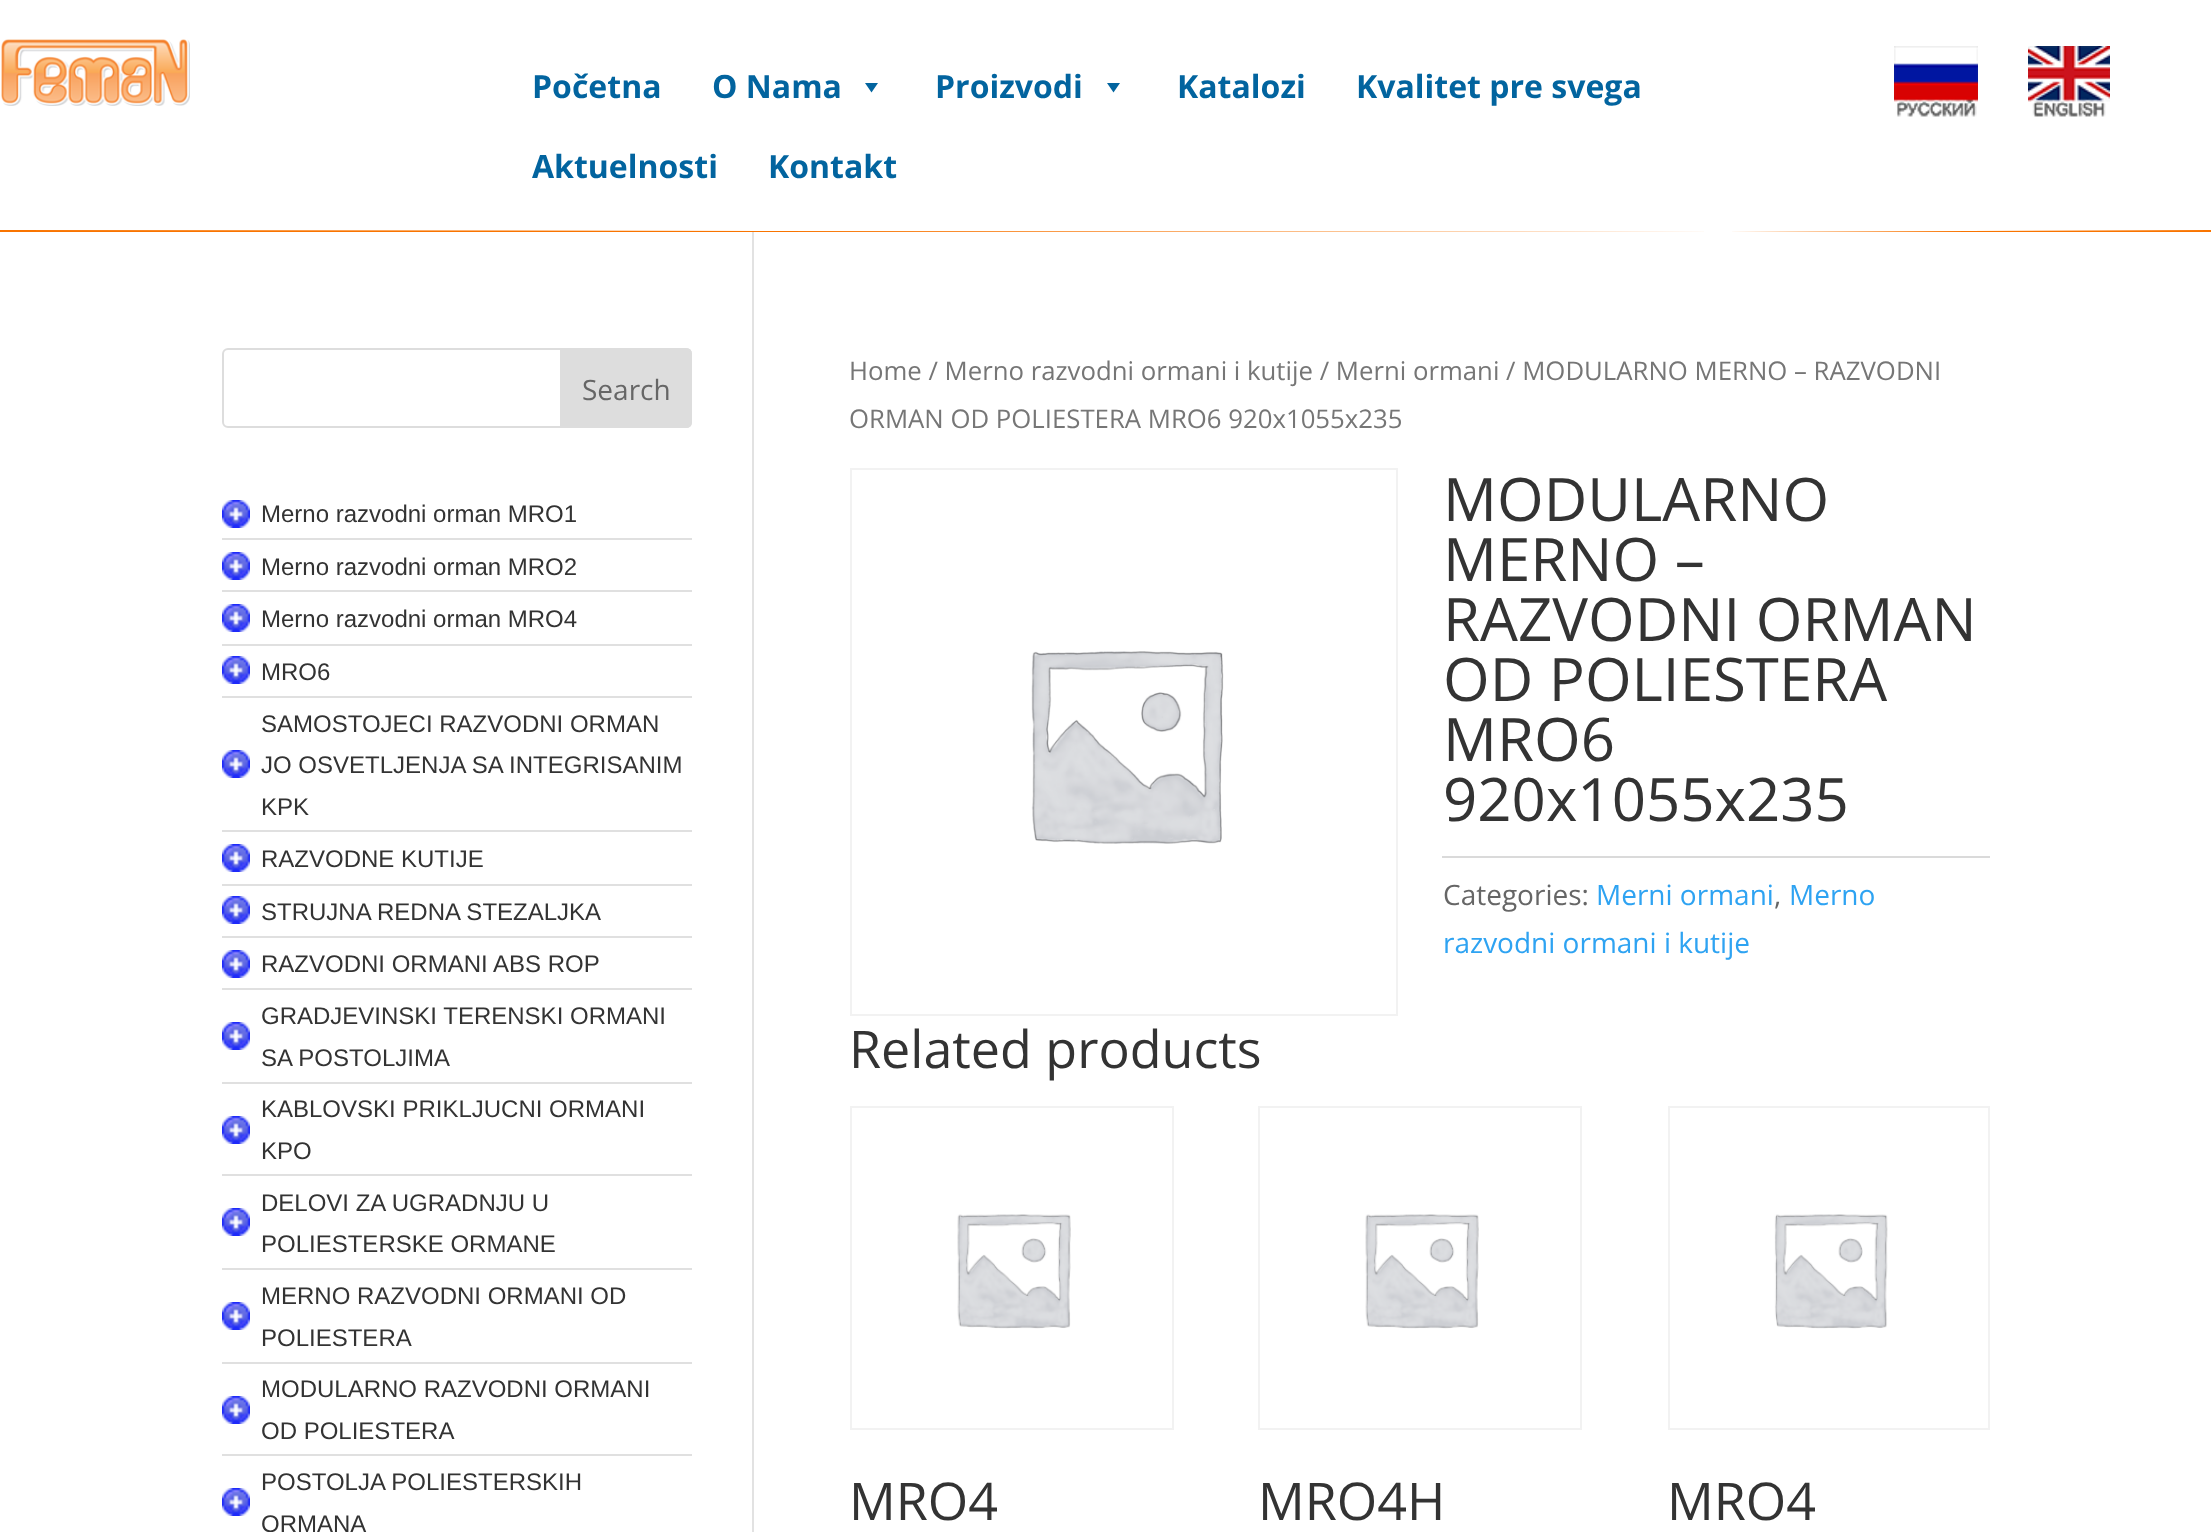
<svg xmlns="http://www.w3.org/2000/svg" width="2211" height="1532">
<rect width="100%" height="100%" fill="#fff"/>
<image x="1" y="39" width="189" height="67" href="media/1.png"/>
<text x="532" y="98" style="font-family:Open Sans;font-size:32px;font-weight:bold;fill:#02649f">Početna</text>
<text x="712" y="98" style="font-family:Open Sans;font-size:32px;font-weight:bold;fill:#02649f">O Nama</text>
<path d="M878 83l-6.5 9.5l-6.5-9.5z" fill="#02649f"/>
<text x="935" y="98" style="font-family:Open Sans;font-size:32px;font-weight:bold;fill:#02649f">Proizvodi</text>
<path d="M1120 83l-6.5 9.5l-6.5-9.5z" fill="#02649f"/>
<text x="1177" y="98" style="font-family:Open Sans;font-size:32px;font-weight:bold;fill:#02649f">Katalozi</text>
<text x="1356" y="98" style="font-family:Open Sans;font-size:32px;font-weight:bold;fill:#02649f">Kvalitet pre svega</text>
<text x="532" y="178" style="font-family:Open Sans;font-size:32px;font-weight:bold;fill:#02649f">Aktuelnosti</text>
<text x="768" y="178" style="font-family:Open Sans;font-size:32px;font-weight:bold;fill:#02649f">Kontakt</text>
<image x="1894" y="46" width="84" height="71" href="media/2.png"/>
<image x="2028" y="46" width="82" height="71" href="media/3.png"/>
<path d="M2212 230l-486 2l-1726-2v2h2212z" fill="#f97400"/>
<rect x="752" y="232" width="2" height="1300" fill="#e2e2e2"/>
<rect x="223" y="349" width="468" height="78" rx="5" fill="none" stroke="#ddd" stroke-width="2"/>
<path d="M561 349h125c3 0 5 2 5 5v68c0 3-2 5-5 5h-125z" fill="#ddd" stroke="#ddd" stroke-width="2"/>
<text x="582" y="400" style="font-family:Open Sans;font-size:28px;fill:#666">Search</text>
<image x="222" y="500" width="28" height="28" href="media/4.png"/>
<rect x="222" y="538" width="470" height="2" fill="#e0e0e0"/>
<text x="261" y="522" style="font-family:Arimo;font-size:24px;fill:#333">Merno razvodni orman MRO1</text>
<image x="222" y="552" width="28" height="28" href="media/4.png"/>
<rect x="222" y="590" width="470" height="2" fill="#e0e0e0"/>
<text x="261" y="575" style="font-family:Arimo;font-size:24px;fill:#333">Merno razvodni orman MRO2</text>
<image x="222" y="604" width="28" height="28" href="media/4.png"/>
<rect x="222" y="644" width="470" height="2" fill="#e0e0e0"/>
<text x="261" y="627" style="font-family:Arimo;font-size:24px;fill:#333">Merno razvodni orman MRO4</text>
<image x="222" y="656" width="28" height="28" href="media/4.png"/>
<rect x="222" y="696" width="470" height="2" fill="#e0e0e0"/>
<text x="261" y="680" style="font-family:Arimo;font-size:24px;fill:#333">MRO6</text>
<image x="222" y="750" width="28" height="28" href="media/4.png"/>
<rect x="222" y="830" width="470" height="2" fill="#e0e0e0"/>
<text x="261" y="732" style="font-family:Arimo;font-size:24px;fill:#333">SAMOSTOJECI RAZVODNI ORMAN</text>
<text x="261" y="773" style="font-family:Arimo;font-size:24px;fill:#333">JO OSVETLJENJA SA INTEGRISANIM</text>
<text x="261" y="815" style="font-family:Arimo;font-size:24px;fill:#333">KPK</text>
<image x="222" y="844" width="28" height="28" href="media/4.png"/>
<rect x="222" y="884" width="470" height="2" fill="#e0e0e0"/>
<text x="261" y="867" style="font-family:Arimo;font-size:24px;fill:#333">RAZVODNE KUTIJE</text>
<image x="222" y="896" width="28" height="28" href="media/4.png"/>
<rect x="222" y="936" width="470" height="2" fill="#e0e0e0"/>
<text x="261" y="920" style="font-family:Arimo;font-size:24px;fill:#333">STRUJNA REDNA STEZALJKA</text>
<image x="222" y="950" width="28" height="28" href="media/4.png"/>
<rect x="222" y="988" width="470" height="2" fill="#e0e0e0"/>
<text x="261" y="972" style="font-family:Arimo;font-size:24px;fill:#333">RAZVODNI ORMANI ABS ROP</text>
<image x="222" y="1022" width="28" height="28" href="media/4.png"/>
<rect x="222" y="1082" width="470" height="2" fill="#e0e0e0"/>
<text x="261" y="1024" style="font-family:Arimo;font-size:24px;fill:#333">GRADJEVINSKI TERENSKI ORMANI</text>
<text x="261" y="1066" style="font-family:Arimo;font-size:24px;fill:#333">SA POSTOLJIMA</text>
<image x="222" y="1116" width="28" height="28" href="media/4.png"/>
<rect x="222" y="1174" width="470" height="2" fill="#e0e0e0"/>
<text x="261" y="1117" style="font-family:Arimo;font-size:24px;fill:#333">KABLOVSKI PRIKLJUCNI ORMANI</text>
<text x="261" y="1159" style="font-family:Arimo;font-size:24px;fill:#333">KPO</text>
<image x="222" y="1208" width="28" height="28" href="media/4.png"/>
<rect x="222" y="1268" width="470" height="2" fill="#e0e0e0"/>
<text x="261" y="1211" style="font-family:Arimo;font-size:24px;fill:#333">DELOVI ZA UGRADNJU U</text>
<text x="261" y="1252" style="font-family:Arimo;font-size:24px;fill:#333">POLIESTERSKE ORMANE</text>
<image x="222" y="1302" width="28" height="28" href="media/4.png"/>
<rect x="222" y="1362" width="470" height="2" fill="#e0e0e0"/>
<text x="261" y="1304" style="font-family:Arimo;font-size:24px;fill:#333">MERNO RAZVODNI ORMANI OD</text>
<text x="261" y="1346" style="font-family:Arimo;font-size:24px;fill:#333">POLIESTERA</text>
<image x="222" y="1396" width="28" height="28" href="media/4.png"/>
<rect x="222" y="1454" width="470" height="2" fill="#e0e0e0"/>
<text x="261" y="1397" style="font-family:Arimo;font-size:24px;fill:#333">MODULARNO RAZVODNI ORMANI</text>
<text x="261" y="1439" style="font-family:Arimo;font-size:24px;fill:#333">OD POLIESTERA</text>
<image x="222" y="1488" width="28" height="28" href="media/4.png"/>
<text x="261" y="1490" style="font-family:Arimo;font-size:24px;fill:#333">POSTOLJA POLIESTERSKIH</text>
<text x="261" y="1532" style="font-family:Arimo;font-size:24px;fill:#333">ORMANA</text>
<text x="849" y="380" style="font-family:Open Sans;font-size:25.75px;fill:#767676">Home / Merno razvodni ormani i kutije / Merni ormani / MODULARNO MERNO – RAZVODNI</text>
<text x="849" y="428" style="font-family:Open Sans;font-size:25.75px;fill:#767676">ORMAN OD POLIESTERA MRO6 920x1055x235</text>
<rect x="851" y="469" width="546" height="546" fill="none" stroke="#f2f2f2" stroke-width="2"/>
<image x="1031" y="651" width="193" height="193" href="media/5.png"/>
<text x="1443" y="521" style="font-family:Open Sans;font-size:60px;fill:#333">MODULARNO</text>
<text x="1443" y="581" style="font-family:Open Sans;font-size:60px;fill:#333">MERNO –</text>
<text x="1443" y="641" style="font-family:Open Sans;font-size:60px;fill:#333">RAZVODNI ORMAN</text>
<text x="1443" y="701" style="font-family:Open Sans;font-size:60px;fill:#333">OD POLIESTERA</text>
<text x="1443" y="761" style="font-family:Open Sans;font-size:60px;fill:#333">MRO6</text>
<text x="1443" y="821" style="font-family:Open Sans;font-size:60px;fill:#333">920x1055x235</text>
<rect x="1442" y="856" width="548" height="2" fill="#dadada"/>
<text x="1443" y="905" style="font-family:Open Sans;font-size:28px;fill:#666">Categories:</text>
<text x="1596" y="905" style="font-family:Open Sans;font-size:28px;fill:#2ea3f2">Merni ormani</text>
<text x="1774" y="905" style="font-family:Open Sans;font-size:28px;fill:#666">,</text>
<text x="1789" y="905" style="font-family:Open Sans;font-size:28px;fill:#2ea3f2">Merno</text>
<text x="1443" y="953" style="font-family:Open Sans;font-size:28px;fill:#2ea3f2">razvodni ormani i kutije</text>
<text x="849" y="1068" style="font-family:Open Sans;font-size:52px;fill:#333">Related products</text>
<rect x="851" y="1107" width="322" height="322" fill="none" stroke="#f2f2f2" stroke-width="2"/>
<image x="957" y="1214" width="114" height="115" href="media/6.png"/>
<text x="849" y="1520" style="font-family:Open Sans;font-size:52px;fill:#333">MRO4</text>
<rect x="1259" y="1107" width="322" height="322" fill="none" stroke="#f2f2f2" stroke-width="2"/>
<image x="1365" y="1214" width="114" height="115" href="media/6.png"/>
<text x="1258" y="1520" style="font-family:Open Sans;font-size:52px;fill:#333">MRO4H</text>
<rect x="1669" y="1107" width="320" height="322" fill="none" stroke="#f2f2f2" stroke-width="2"/>
<image x="1774" y="1214" width="114" height="115" href="media/7.png"/>
<text x="1667" y="1520" style="font-family:Open Sans;font-size:52px;fill:#333">MRO4</text>
</svg>
